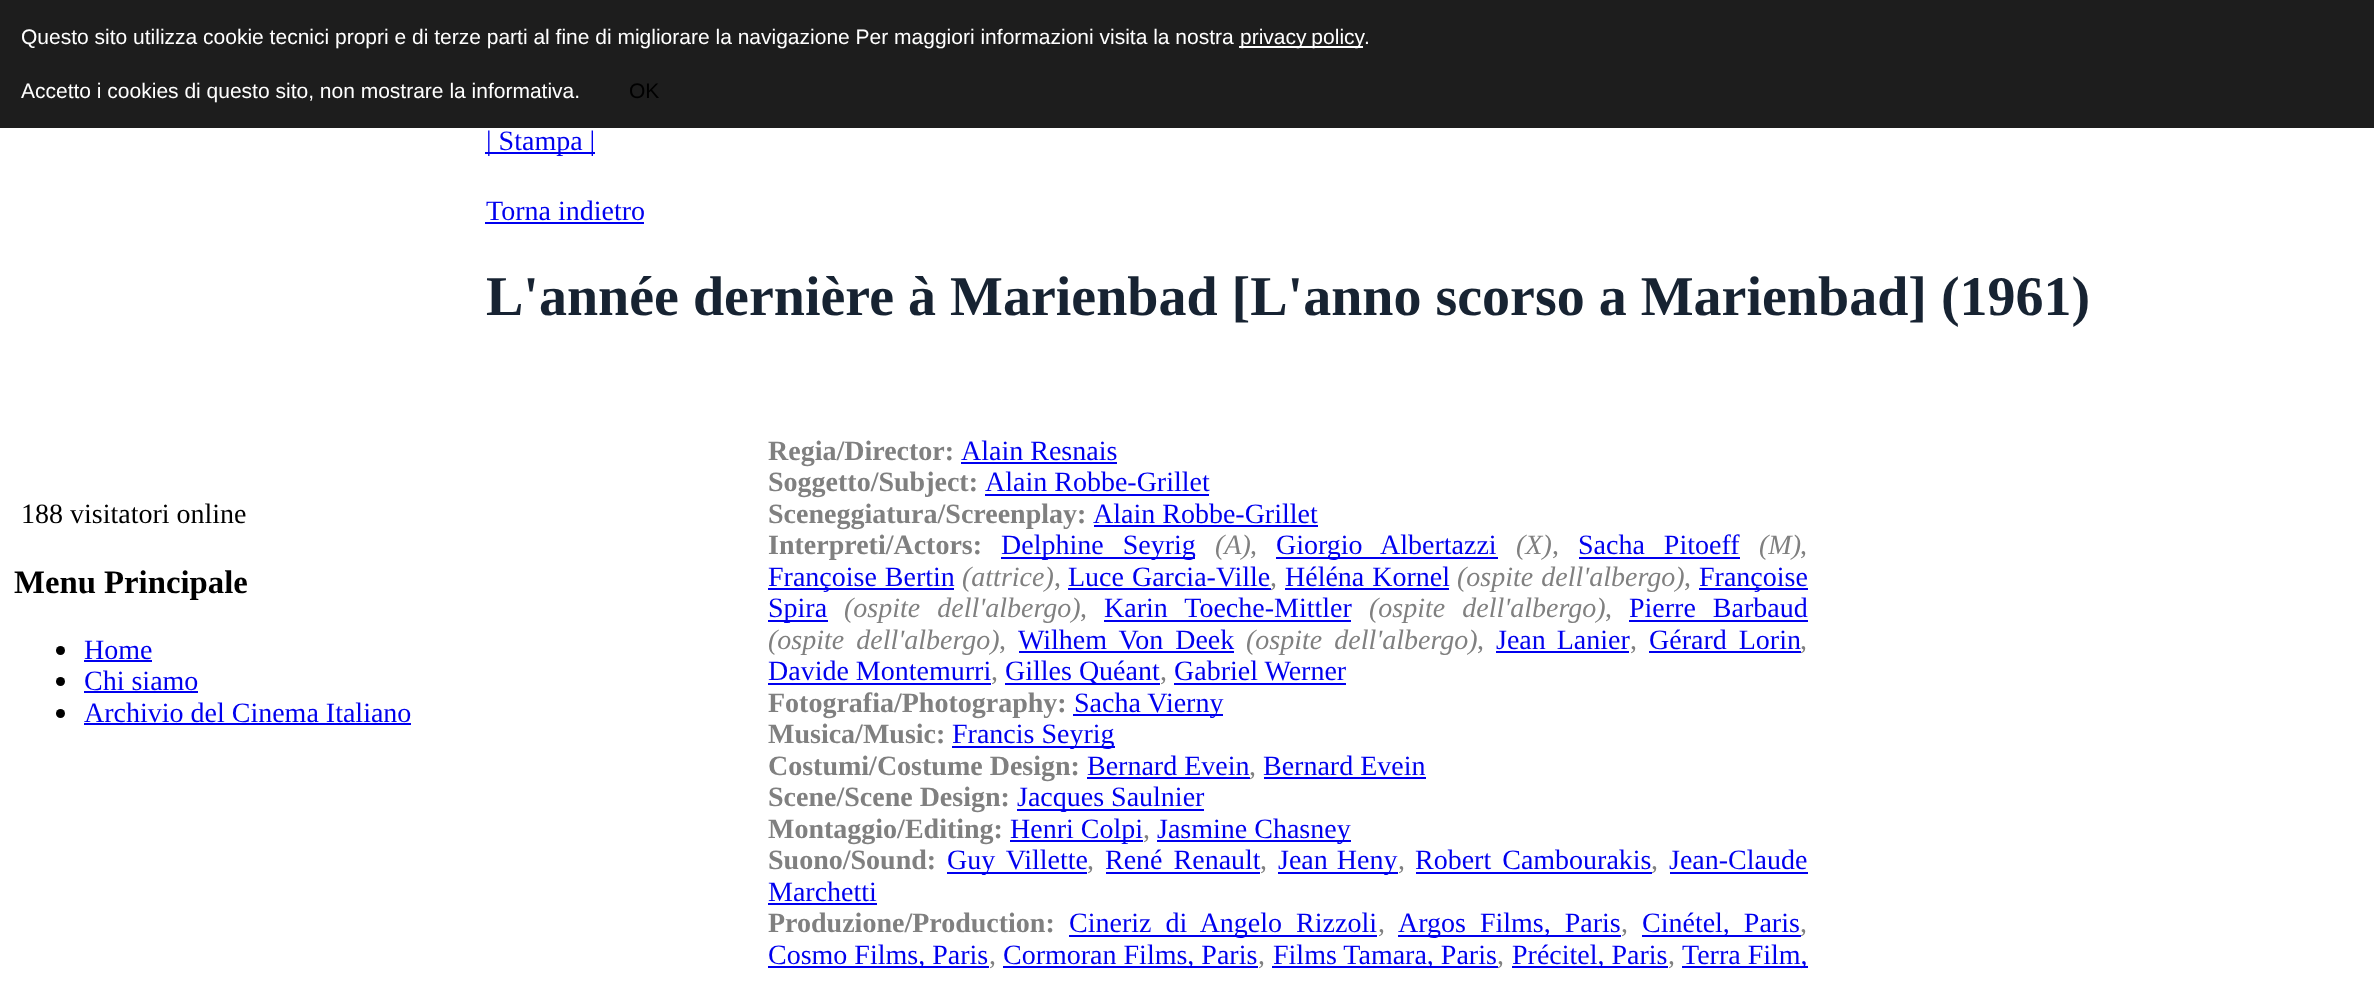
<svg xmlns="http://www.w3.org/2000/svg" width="2374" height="987">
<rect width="100%" height="100%" fill="#fff"/>
<rect width="2374" height="128" fill="#1d1d1d"/>
<text x="21" y="44" style="font-family:Liberation Sans;font-size:21px;fill:#fff">Questo sito utilizza cookie tecnici propri e di terze parti al fine di migliorare la navigazione Per maggiori informazioni visita la nostra</text>
<rect x="1239" y="46" width="124" height="2" fill="#fff"/>
<text x="1240" y="44" word-spacing="-1" style="font-family:Liberation Sans;font-size:21px;fill:#fff">privacy policy</text>
<text x="1364" y="44" style="font-family:Liberation Sans;font-size:21px;fill:#fff">.</text>
<text x="21" y="98" style="font-family:Liberation Sans;font-size:21px;fill:#fff">Accetto i cookies di questo sito, non mostrare la informativa.</text>
<text x="629" y="98" style="font-family:Liberation Sans;font-size:21px;fill:#000">OK</text>
<text x="21" y="523" style="font-family:Liberation Serif;font-size:28px;fill:#000">188 visitatori online</text>
<text x="14" y="593" style="font-family:Liberation Serif;font-size:32.75px;font-weight:bold;fill:#000">Menu Principale</text>
<circle cx="60.5" cy="650.5" r="4.5" fill="#000"/>
<text x="84" y="659" style="font-family:Liberation Serif;font-size:28px;fill:#00e">Home</text>
<rect x="84" y="660" width="68" height="2" fill="#00e"/>
<circle cx="60.5" cy="681.5" r="4.5" fill="#000"/>
<text x="84" y="690" style="font-family:Liberation Serif;font-size:28px;fill:#00e">Chi siamo</text>
<rect x="84" y="691" width="114" height="2" fill="#00e"/>
<circle cx="60.5" cy="713.5" r="4.5" fill="#000"/>
<text x="84" y="722" style="font-family:Liberation Serif;font-size:28px;fill:#00e">Archivio del Cinema Italiano</text>
<rect x="84" y="723" width="327" height="2" fill="#00e"/>
<rect x="485" y="152" width="110" height="2" fill="#00e"/>
<text x="486" y="150" style="font-family:Liberation Serif;font-size:28px;fill:#00e">| Stampa |</text>
<text x="486" y="220" style="font-family:Liberation Serif;font-size:28px;fill:#00e">Torna indietro</text>
<rect x="485" y="222" width="159" height="2" fill="#00e"/>
<text x="486" y="315" style="font-family:Liberation Serif;font-size:56px;font-weight:bold;fill:#172332">L'année dernière à Marienbad [L'anno scorso a Marienbad] (1961)</text>
<text x="768" y="460" style="font-family:Liberation Serif;font-size:28px;font-weight:bold;fill:#808080">Regia/Director:</text>
<text x="961" y="460" style="font-family:Liberation Serif;font-size:28px;fill:#00e">Alain Resnais</text>
<rect x="961" y="462" width="156" height="2" fill="#00e"/>
<text x="768" y="491" style="font-family:Liberation Serif;font-size:28px;font-weight:bold;fill:#808080">Soggetto/Subject:</text>
<text x="985" y="491" style="font-family:Liberation Serif;font-size:28px;fill:#00e">Alain Robbe-Grillet</text>
<rect x="985" y="494" width="224" height="2" fill="#00e"/>
<text x="768" y="523" style="font-family:Liberation Serif;font-size:28px;font-weight:bold;fill:#808080">Sceneggiatura/Screenplay:</text>
<text x="1093" y="523" style="font-family:Liberation Serif;font-size:28px;fill:#00e">Alain Robbe-Grillet</text>
<rect x="1094" y="525" width="224" height="2" fill="#00e"/>
<text x="768" y="554" style="font-family:Liberation Serif;font-size:28px;font-weight:bold;fill:#808080">Interpreti/Actors:</text>
<rect x="1001" y="557" width="194" height="2" fill="#00e"/>
<text x="1001" y="554" word-spacing="12" style="font-family:Liberation Serif;font-size:28px;fill:#00e">Delphine Seyrig</text>
<text x="1215" y="554" style="font-family:Liberation Serif;font-size:28px;font-style:italic;fill:#808080">(A)</text>
<text x="1250" y="554" style="font-family:Liberation Serif;font-size:28px;fill:#808080">,</text>
<rect x="1276" y="557" width="222" height="2" fill="#00e"/>
<text x="1276" y="554" word-spacing="12" style="font-family:Liberation Serif;font-size:28px;fill:#00e">Giorgio Albertazzi</text>
<text x="1516" y="554" style="font-family:Liberation Serif;font-size:28px;font-style:italic;fill:#808080">(X)</text>
<text x="1552" y="554" style="font-family:Liberation Serif;font-size:28px;fill:#808080">,</text>
<rect x="1579" y="557" width="161" height="2" fill="#00e"/>
<text x="1578" y="554" word-spacing="12" style="font-family:Liberation Serif;font-size:28px;fill:#00e">Sacha Pitoeff</text>
<text x="1759" y="554" style="font-family:Liberation Serif;font-size:28px;font-style:italic;fill:#808080">(M)</text>
<text x="1800" y="554" style="font-family:Liberation Serif;font-size:28px;fill:#808080">,</text>
<rect x="768" y="588" width="186" height="2" fill="#00e"/>
<text x="768" y="586" word-spacing="1" style="font-family:Liberation Serif;font-size:28px;fill:#00e">Françoise Bertin</text>
<text x="962" y="586" style="font-family:Liberation Serif;font-size:28px;font-style:italic;fill:#808080">(attrice)</text>
<text x="1054" y="586" style="font-family:Liberation Serif;font-size:28px;fill:#808080">,</text>
<text x="1068" y="586" word-spacing="1" style="font-family:Liberation Serif;font-size:28px;fill:#00e">Luce Garcia-Ville</text>
<text x="1270" y="586" style="font-family:Liberation Serif;font-size:28px;fill:#808080">,</text>
<rect x="1068" y="588" width="203" height="2" fill="#00e"/>
<rect x="1285" y="588" width="164" height="2" fill="#00e"/>
<text x="1285" y="586" word-spacing="1" style="font-family:Liberation Serif;font-size:28px;fill:#00e">Héléna Kornel</text>
<text x="1457" y="586" word-spacing="1" style="font-family:Liberation Serif;font-size:28px;font-style:italic;fill:#808080">(ospite dell'albergo)</text>
<text x="1684" y="586" style="font-family:Liberation Serif;font-size:28px;fill:#808080">,</text>
<rect x="1699" y="588" width="109" height="2" fill="#00e"/>
<text x="1699" y="586" style="font-family:Liberation Serif;font-size:28px;fill:#00e">Françoise</text>
<rect x="768" y="620" width="60" height="2" fill="#00e"/>
<text x="768" y="617" style="font-family:Liberation Serif;font-size:28px;fill:#00e">Spira</text>
<text x="844" y="617" word-spacing="10" style="font-family:Liberation Serif;font-size:28px;font-style:italic;fill:#808080">(ospite dell'albergo)</text>
<text x="1080" y="617" style="font-family:Liberation Serif;font-size:28px;fill:#808080">,</text>
<rect x="1104" y="620" width="247" height="2" fill="#00e"/>
<text x="1104" y="617" word-spacing="10" style="font-family:Liberation Serif;font-size:28px;fill:#00e">Karin Toeche-Mittler</text>
<text x="1369" y="617" word-spacing="10" style="font-family:Liberation Serif;font-size:28px;font-style:italic;fill:#808080">(ospite dell'albergo)</text>
<text x="1605" y="617" style="font-family:Liberation Serif;font-size:28px;fill:#808080">,</text>
<rect x="1629" y="620" width="179" height="2" fill="#00e"/>
<text x="1629" y="617" word-spacing="10" style="font-family:Liberation Serif;font-size:28px;fill:#00e">Pierre Barbaud</text>
<text x="768" y="649" word-spacing="5" style="font-family:Liberation Serif;font-size:28px;font-style:italic;fill:#808080">(ospite dell'albergo)</text>
<text x="999" y="649" style="font-family:Liberation Serif;font-size:28px;fill:#808080">,</text>
<rect x="1019" y="651" width="215" height="2" fill="#00e"/>
<text x="1018" y="649" word-spacing="5" style="font-family:Liberation Serif;font-size:28px;fill:#00e">Wilhem Von Deek</text>
<text x="1246" y="649" word-spacing="5" style="font-family:Liberation Serif;font-size:28px;font-style:italic;fill:#808080">(ospite dell'albergo)</text>
<text x="1477" y="649" style="font-family:Liberation Serif;font-size:28px;fill:#808080">,</text>
<text x="1496" y="649" word-spacing="4" style="font-family:Liberation Serif;font-size:28px;fill:#00e">Jean Lanier</text>
<text x="1630" y="649" style="font-family:Liberation Serif;font-size:28px;fill:#808080">,</text>
<rect x="1496" y="651" width="133" height="2" fill="#00e"/>
<text x="1649" y="649" word-spacing="5" style="font-family:Liberation Serif;font-size:28px;fill:#00e">Gérard Lorin</text>
<text x="1800" y="649" style="font-family:Liberation Serif;font-size:28px;fill:#808080">,</text>
<rect x="1649" y="651" width="152" height="2" fill="#00e"/>
<text x="768" y="680" style="font-family:Liberation Serif;font-size:28px;fill:#00e">Davide Montemurri</text>
<text x="991" y="680" style="font-family:Liberation Serif;font-size:28px;fill:#808080">,</text>
<rect x="768" y="683" width="223" height="2" fill="#00e"/>
<rect x="1005" y="683" width="155" height="2" fill="#00e"/>
<text x="1005" y="680" style="font-family:Liberation Serif;font-size:28px;fill:#00e">Gilles Quéant</text>
<text x="1160" y="680" style="font-family:Liberation Serif;font-size:28px;fill:#808080">,</text>
<rect x="1174" y="683" width="172" height="2" fill="#00e"/>
<text x="1174" y="680" style="font-family:Liberation Serif;font-size:28px;fill:#00e">Gabriel Werner</text>
<text x="768" y="712" style="font-family:Liberation Serif;font-size:28px;font-weight:bold;fill:#808080">Fotografia/Photography:</text>
<rect x="1073" y="714" width="150" height="2" fill="#00e"/>
<text x="1074" y="712" style="font-family:Liberation Serif;font-size:28px;fill:#00e">Sacha Vierny</text>
<text x="768" y="743" style="font-family:Liberation Serif;font-size:28px;font-weight:bold;fill:#808080">Musica/Music:</text>
<rect x="952" y="746" width="163" height="2" fill="#00e"/>
<text x="952" y="743" style="font-family:Liberation Serif;font-size:28px;fill:#00e">Francis Seyrig</text>
<text x="768" y="775" style="font-family:Liberation Serif;font-size:28px;font-weight:bold;fill:#808080">Costumi/Costume Design:</text>
<text x="1087" y="775" style="font-family:Liberation Serif;font-size:28px;fill:#00e">Bernard Evein</text>
<text x="1249" y="775" style="font-family:Liberation Serif;font-size:28px;fill:#808080">,</text>
<rect x="1087" y="777" width="163" height="2" fill="#00e"/>
<rect x="1264" y="777" width="162" height="2" fill="#00e"/>
<text x="1263" y="775" style="font-family:Liberation Serif;font-size:28px;fill:#00e">Bernard Evein</text>
<text x="768" y="806" style="font-family:Liberation Serif;font-size:28px;font-weight:bold;fill:#808080">Scene/Scene Design:</text>
<rect x="1017" y="809" width="187" height="2" fill="#00e"/>
<text x="1017" y="806" style="font-family:Liberation Serif;font-size:28px;fill:#00e">Jacques Saulnier</text>
<text x="768" y="838" style="font-family:Liberation Serif;font-size:28px;font-weight:bold;fill:#808080">Montaggio/Editing:</text>
<rect x="1010" y="840" width="133" height="2" fill="#00e"/>
<text x="1010" y="838" style="font-family:Liberation Serif;font-size:28px;fill:#00e">Henri Colpi</text>
<text x="1143" y="838" style="font-family:Liberation Serif;font-size:28px;fill:#808080">,</text>
<rect x="1157" y="840" width="194" height="2" fill="#00e"/>
<text x="1157" y="838" style="font-family:Liberation Serif;font-size:28px;fill:#00e">Jasmine Chasney</text>
<text x="768" y="869" style="font-family:Liberation Serif;font-size:28px;font-weight:bold;fill:#808080">Suono/Sound:</text>
<rect x="947" y="872" width="140" height="2" fill="#00e"/>
<text x="947" y="869" word-spacing="4" style="font-family:Liberation Serif;font-size:28px;fill:#00e">Guy Villette</text>
<text x="1087" y="869" style="font-family:Liberation Serif;font-size:28px;fill:#808080">,</text>
<text x="1105" y="869" word-spacing="4" style="font-family:Liberation Serif;font-size:28px;fill:#00e">René Renault</text>
<text x="1260" y="869" style="font-family:Liberation Serif;font-size:28px;fill:#808080">,</text>
<rect x="1106" y="872" width="154" height="2" fill="#00e"/>
<rect x="1278" y="872" width="120" height="2" fill="#00e"/>
<text x="1278" y="869" word-spacing="2" style="font-family:Liberation Serif;font-size:28px;fill:#00e">Jean Heny</text>
<text x="1398" y="869" style="font-family:Liberation Serif;font-size:28px;fill:#808080">,</text>
<text x="1415" y="869" word-spacing="4" style="font-family:Liberation Serif;font-size:28px;fill:#00e">Robert Cambourakis</text>
<text x="1651" y="869" style="font-family:Liberation Serif;font-size:28px;fill:#808080">,</text>
<rect x="1416" y="872" width="236" height="2" fill="#00e"/>
<rect x="1670" y="872" width="138" height="2" fill="#00e"/>
<text x="1669" y="869" style="font-family:Liberation Serif;font-size:28px;fill:#00e">Jean-Claude</text>
<text x="768" y="901" style="font-family:Liberation Serif;font-size:28px;fill:#00e">Marchetti</text>
<rect x="768" y="903" width="109" height="2" fill="#00e"/>
<text x="768" y="932" style="font-family:Liberation Serif;font-size:28px;font-weight:bold;fill:#808080">Produzione/Production:</text>
<rect x="1069" y="935" width="308" height="2" fill="#00e"/>
<text x="1069" y="932" word-spacing="7" style="font-family:Liberation Serif;font-size:28px;fill:#00e">Cineriz di Angelo Rizzoli</text>
<text x="1378" y="932" style="font-family:Liberation Serif;font-size:28px;fill:#808080">,</text>
<rect x="1398" y="935" width="223" height="2" fill="#00e"/>
<text x="1398" y="932" word-spacing="7" style="font-family:Liberation Serif;font-size:28px;fill:#00e">Argos Films, Paris</text>
<text x="1621" y="932" style="font-family:Liberation Serif;font-size:28px;fill:#808080">,</text>
<rect x="1642" y="935" width="159" height="2" fill="#00e"/>
<text x="1642" y="932" word-spacing="7" style="font-family:Liberation Serif;font-size:28px;fill:#00e">Cinétel, Paris</text>
<text x="1800" y="932" style="font-family:Liberation Serif;font-size:28px;fill:#808080">,</text>
<rect x="768" y="966" width="221" height="2" fill="#00e"/>
<text x="768" y="964" style="font-family:Liberation Serif;font-size:28px;fill:#00e">Cosmo Films, Paris</text>
<text x="989" y="964" style="font-family:Liberation Serif;font-size:28px;fill:#808080">,</text>
<rect x="1003" y="966" width="255" height="2" fill="#00e"/>
<text x="1003" y="964" style="font-family:Liberation Serif;font-size:28px;fill:#00e">Cormoran Films, Paris</text>
<text x="1258" y="964" style="font-family:Liberation Serif;font-size:28px;fill:#808080">,</text>
<rect x="1272" y="966" width="226" height="2" fill="#00e"/>
<text x="1273" y="964" style="font-family:Liberation Serif;font-size:28px;fill:#00e">Films Tamara, Paris</text>
<text x="1497" y="964" style="font-family:Liberation Serif;font-size:28px;fill:#808080">,</text>
<rect x="1512" y="966" width="156" height="2" fill="#00e"/>
<text x="1512" y="964" style="font-family:Liberation Serif;font-size:28px;fill:#00e">Précitel, Paris</text>
<text x="1668" y="964" style="font-family:Liberation Serif;font-size:28px;fill:#808080">,</text>
<rect x="1682" y="966" width="126" height="2" fill="#00e"/>
<text x="1682" y="964" style="font-family:Liberation Serif;font-size:28px;fill:#00e">Terra Film,</text>
</svg>
